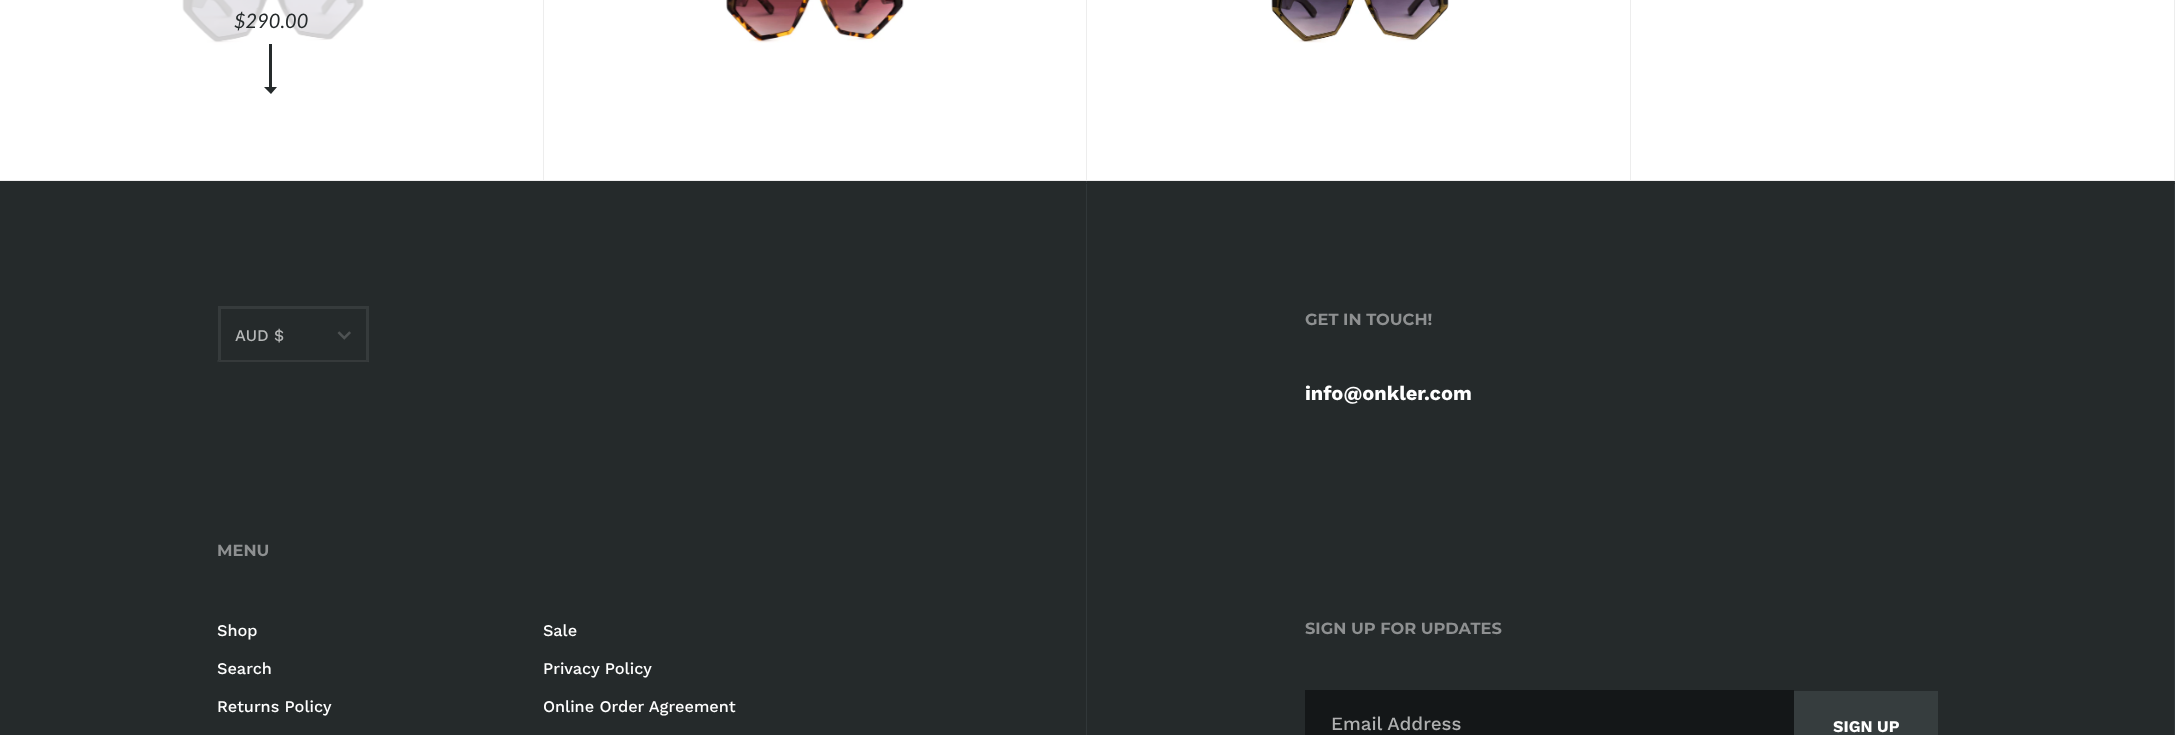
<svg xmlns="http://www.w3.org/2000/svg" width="2175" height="735">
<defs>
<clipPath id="clip1"><rect x="246" y="44" width="52" height="61"/></clipPath>
</defs>
<rect width="100%" height="100%" fill="#fff"/>
<rect x="543" width="1" height="181" fill="#ededed"/>
<rect y="180" width="544" height="1" fill="#ededed"/>
<image x="182" y="0" width="182" height="45" href="media/1.png"/>
<text x="234" y="28" style="font-family:Lato;font-size:20px;font-style:italic;fill:#252a2b">$290.00</text>
<g clip-path="url(#clip1)">
<path d="M272 43v44h5l-6 7l-7-7h5v-44z" fill="#252a2b"/>
</g>
<rect x="1086" width="1" height="181" fill="#ededed"/>
<rect x="544" y="180" width="544" height="1" fill="#ededed"/>
<image x="726" y="0" width="178" height="43" href="media/2.png"/>
<rect x="1630" width="1" height="181" fill="#ededed"/>
<rect x="1088" y="180" width="543" height="1" fill="#ededed"/>
<image x="1271" y="0" width="178" height="43" href="media/3.png"/>
<rect x="2174" width="1" height="181" fill="#ededed"/>
<rect x="1631" y="180" width="544" height="1" fill="#ededed"/>
<rect y="181" width="2174" height="554" fill="#252a2b"/>
<rect x="1086" y="181" width="1" height="554" fill="#313739"/>
<rect x="2174" y="181" width="1" height="554" fill="#313739"/>
<rect x="1086" y="183" width="1089" height="1" fill="#252a2b"/>
<rect x="219.5" y="307.5" width="148" height="54" fill="none" stroke="#363b3c" stroke-width="3"/>
<text x="235" y="341" style="font-family:Work Sans;font-size:16.25px;font-weight:500;fill:#b5b7b7">AUD $</text>
<image x="337" y="331" width="14" height="9" href="media/4.png"/>
<rect x="218" y="360" width="151" height="3" fill="#252a2b"/>
<path d="M369 360v2.5l-3-2.5z" fill="#363b3c"/>
<path d="M369 362h-151l2-2h146z" fill="#ffffff14"/>
<path d="M217.5 362.5v-2.5h2.5z" fill="#363b3c"/>
<text x="217" y="556" style="font-family:Montserrat;font-size:16.25px;font-weight:bold;fill:#8e9091">MENU</text>
<text x="217" y="636" style="font-family:Work Sans;font-size:16.25px;font-weight:500;fill:#fff">Shop</text>
<text x="543" y="636" style="font-family:Work Sans;font-size:16.25px;font-weight:500;fill:#fff">Sale</text>
<text x="217" y="674" style="font-family:Work Sans;font-size:16.25px;font-weight:500;fill:#fff">Search</text>
<text x="543" y="674" style="font-family:Work Sans;font-size:16.25px;font-weight:500;fill:#fff">Privacy Policy</text>
<text x="217" y="712" style="font-family:Work Sans;font-size:16.25px;font-weight:500;fill:#fff">Returns Policy</text>
<text x="543" y="712" style="font-family:Work Sans;font-size:16.25px;font-weight:500;fill:#fff">Online Order Agreement</text>
<text x="1305" y="325" style="font-family:Montserrat;font-size:16.25px;font-weight:bold;fill:#8e9091">GET IN TOUCH!</text>
<text x="1305" y="400" style="font-family:Work Sans;font-size:20px;font-weight:bold;fill:#fff">info@onkler.com</text>
<text x="1305" y="634" style="font-family:Montserrat;font-size:16.25px;font-weight:bold;fill:#8e9091">SIGN UP FOR UPDATES</text>
<rect x="1305" y="690" width="489" height="45" fill="#141718"/>
<text x="1331" y="730" style="font-family:Work Sans;font-size:18.75px;font-weight:500;fill:#afb0b0">Email Address</text>
<rect x="1794" y="691" width="144" height="44" fill="#363d3e"/>
<text x="1833" y="732" style="font-family:Work Sans;font-size:16.25px;font-weight:bold;fill:#fff">SIGN UP</text>
</svg>
